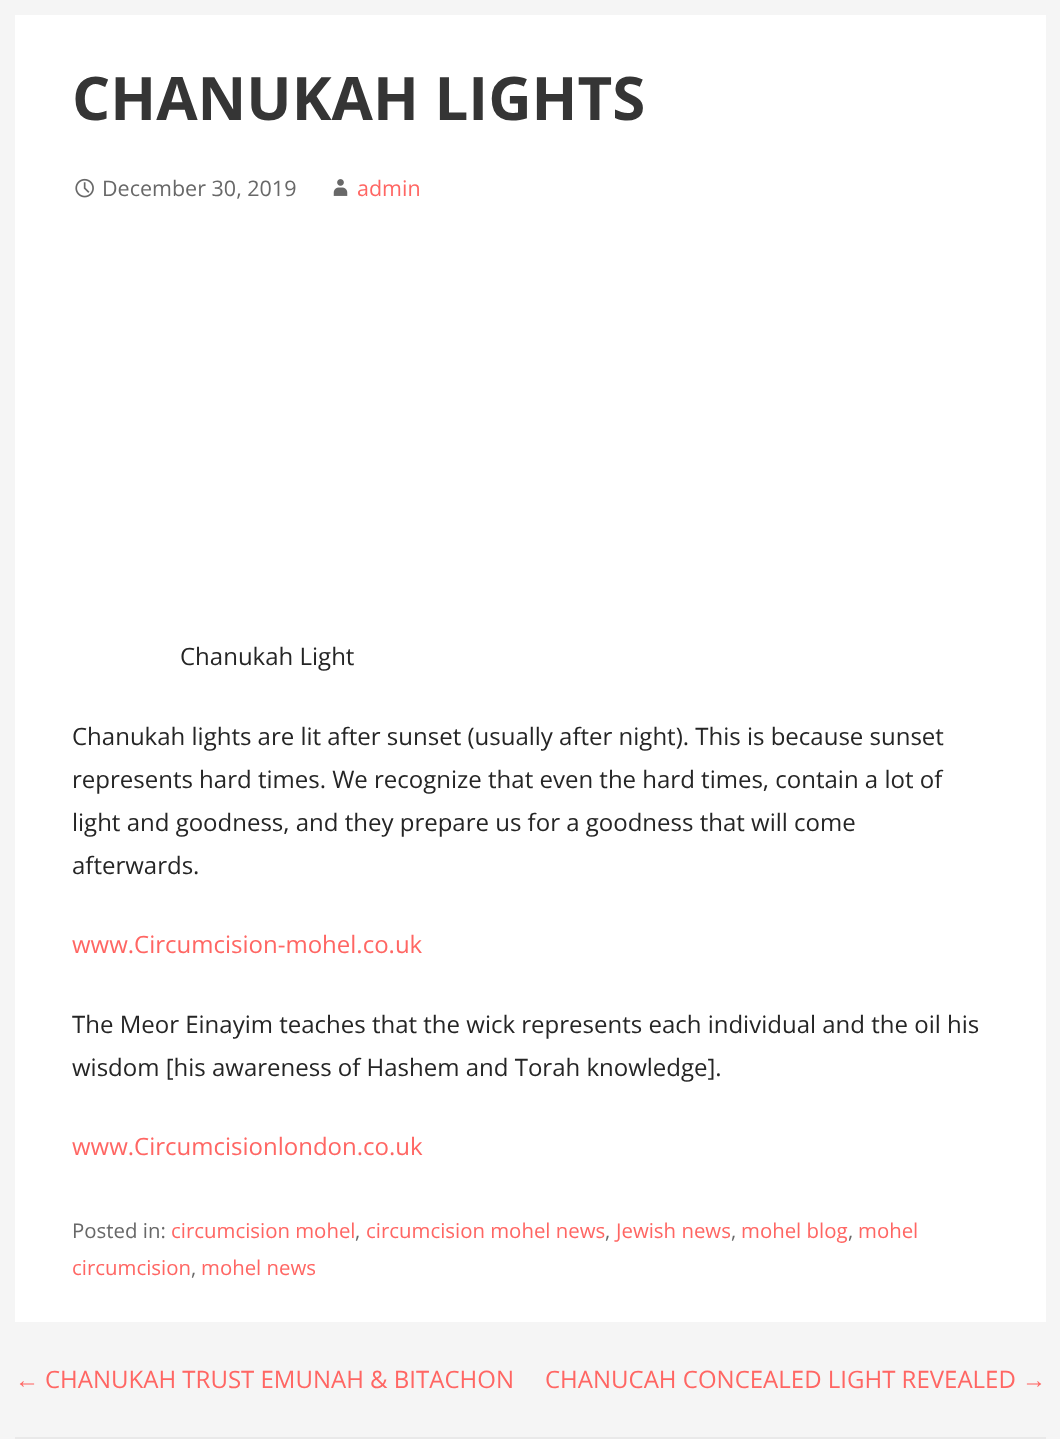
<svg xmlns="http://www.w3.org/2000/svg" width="1060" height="1439">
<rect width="100%" height="100%" fill="#f5f5f5"/>
<rect x="15" y="15" width="1031" height="1307" fill="#fff"/>
<text x="72" y="120" style="font-family:Open Sans;font-size:60px;font-weight:bold;fill:#353535">CHANUKAH LIGHTS</text>
<image x="75" y="178" width="19" height="20" href="media/1.png"/>
<text x="102" y="196" style="font-family:Open Sans;font-size:21.5px;fill:#686868">December 30, 2019</text>
<image x="333" y="179" width="15" height="17" href="media/2.png"/>
<text x="357" y="196" style="font-family:Open Sans;font-size:21.5px;fill:#ff6663">admin</text>
<text x="180" y="665" style="font-family:Open Sans;font-size:24px;fill:#252525">Chanukah Light</text>
<text x="72" y="745" style="font-family:Open Sans;font-size:24px;fill:#252525">Chanukah lights are lit after sunset (usually after night). This is because sunset</text>
<text x="72" y="788" style="font-family:Open Sans;font-size:24px;fill:#252525">represents hard times. We recognize that even the hard times, contain a lot of</text>
<text x="72" y="831" style="font-family:Open Sans;font-size:24px;fill:#252525">light and goodness, and they prepare us for a goodness that will come</text>
<text x="72" y="874" style="font-family:Open Sans;font-size:24px;fill:#252525">afterwards.</text>
<text x="72" y="953" style="font-family:Open Sans;font-size:24px;fill:#ff6663">www.Circumcision-mohel.co.uk</text>
<text x="72" y="1033" style="font-family:Open Sans;font-size:24px;fill:#252525">The Meor Einayim teaches that the wick represents each individual and the oil his</text>
<text x="72" y="1076" style="font-family:Open Sans;font-size:24px;fill:#252525">wisdom [his awareness of Hashem and Torah knowledge].</text>
<text x="72" y="1155" style="font-family:Open Sans;font-size:24px;fill:#ff6663">www.Circumcisionlondon.co.uk</text>
<text x="72" y="1238" style="font-family:Open Sans;font-size:20.4px;fill:#686868">Posted in:</text>
<text x="171" y="1238" style="font-family:Open Sans;font-size:20.4px;fill:#ff6663">circumcision mohel</text>
<text x="355" y="1238" style="font-family:Open Sans;font-size:20.4px;fill:#686868">,</text>
<text x="366" y="1238" style="font-family:Open Sans;font-size:20.4px;fill:#ff6663">circumcision mohel news</text>
<text x="605" y="1238" style="font-family:Open Sans;font-size:20.4px;fill:#686868">,</text>
<text x="616" y="1238" style="font-family:Open Sans;font-size:20.4px;fill:#ff6663">Jewish news</text>
<text x="731" y="1238" style="font-family:Open Sans;font-size:20.4px;fill:#686868">,</text>
<text x="741" y="1238" style="font-family:Open Sans;font-size:20.4px;fill:#ff6663">mohel blog</text>
<text x="848" y="1238" style="font-family:Open Sans;font-size:20.4px;fill:#686868">,</text>
<text x="858" y="1238" style="font-family:Open Sans;font-size:20.4px;fill:#ff6663">mohel</text>
<text x="72" y="1275" style="font-family:Open Sans;font-size:20.4px;fill:#ff6663">circumcision</text>
<text x="191" y="1275" style="font-family:Open Sans;font-size:20.4px;fill:#686868">,</text>
<text x="201" y="1275" style="font-family:Open Sans;font-size:20.4px;fill:#ff6663">mohel news</text>
<text x="15" y="1388" style="font-family:Liberation Sans;font-size:24px;fill:#ff6663">←</text>
<text x="45" y="1388" style="font-family:Open Sans;font-size:24px;fill:#ff6663">CHANUKAH TRUST EMUNAH &amp; BITACHON</text>
<text x="545" y="1388" style="font-family:Open Sans;font-size:24px;fill:#ff6663">CHANUCAH CONCEALED LIGHT REVEALED</text>
<text x="1022" y="1388" style="font-family:Liberation Sans;font-size:24px;fill:#ff6663">→</text>
<rect x="16" y="1438" width="1029" height="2" fill="none" stroke="#e9e9e9" stroke-width="2"/>
</svg>
